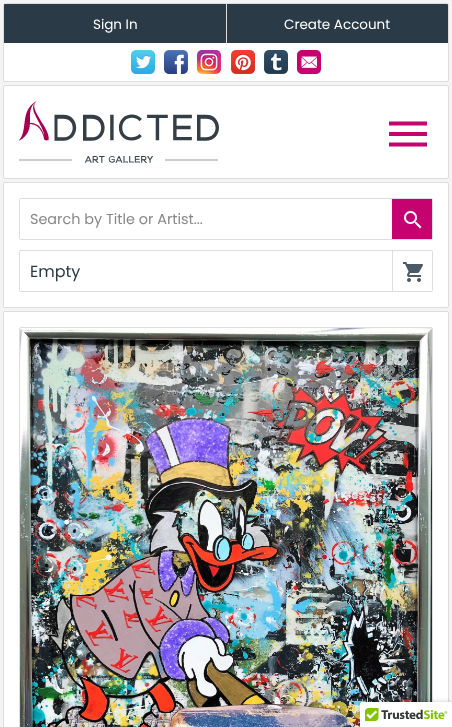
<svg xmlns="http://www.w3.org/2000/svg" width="452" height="727">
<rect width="100%" height="100%" fill="#f4f4f4"/>
<rect x="3.5" y="3.5" width="445" height="78" rx="1.5" fill="#fff" stroke="#ddd"/>
<path d="M5 4h221v39h-222v-38c0-.5 .5-1 1-1z" fill="#2a3b47"/>
<text x="93" y="29" style="font-family:Poppins;font-size:13.5px;fill:#fff">Sign In</text>
<path d="M226 4h221c.5 0 1 .5 1 1v38h-222z" fill="#2a3b47"/>
<rect x="226" y="4" width="1" height="39" fill="#ddd"/>
<text x="284" y="29" style="font-family:Poppins;font-size:13.5px;fill:#fff">Create Account</text>
<image x="131" y="50" width="24" height="24" href="media/1.png"/>
<image x="164" y="50" width="24" height="24" href="media/2.png"/>
<image x="197" y="50" width="24" height="24" href="media/3.png"/>
<image x="231" y="50" width="24" height="24" href="media/4.png"/>
<image x="264" y="50" width="24" height="24" href="media/5.png"/>
<image x="297" y="50" width="24" height="24" href="media/6.png"/>
<rect x="3.5" y="85.5" width="445" height="93" rx="1.5" fill="#fff" stroke="#ddd"/>
<image x="19" y="101" width="200" height="62" href="media/7.png"/>
<path d="M389 121.5h38v4h-38zm0 14.5v-4h38v4zm0 10.5v-4h38v4z" fill="#c60170"/>
<rect x="3.5" y="182.5" width="445" height="125" rx="1.5" fill="#fff" stroke="#ddd"/>
<rect x="19.5" y="198.5" width="413" height="41" rx="1.5" fill="none" stroke="#ddd"/>
<rect x="20" y="199" width="1" height="40" fill="#fff"/>
<text x="30" y="224" style="font-family:Poppins;font-size:14.4px;fill:#888">Search by Title or Artist...</text>
<rect x="392" y="199" width="40" height="40" fill="#c60170"/>
<image x="404" y="211" width="18" height="18" href="media/8.png"/>
<rect x="19.5" y="250.5" width="413" height="41" rx="1.5" fill="none" stroke="#ddd"/>
<text x="30" y="277" style="font-family:Poppins;font-size:16px;fill:#2a3b47">Empty</text>
<path d="M392 251h39c.5 0 1 .5 1 1v38c0 .5-.5 1-1 1h-39z" fill="#fff"/>
<rect x="392" y="251" width="1" height="40" fill="#ddd"/>
<image x="403" y="262" width="20" height="20" href="media/9.png"/>
<rect x="3.5" y="311.5" width="445" height="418" rx="1.5" fill="#fff" stroke="#ddd"/>
<rect x="19.5" y="327.5" width="413" height="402" rx="1.5" fill="none" stroke="#ddd"/>
<image x="20" y="328" width="412" height="399" href="media/10.png"/>
<rect x="360" y="702" width="92" height="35" rx="2" fill="#00000033" filter="blur(2.5px)"/>
<path d="M362 702h90v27h-92v-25c0-1 1-2 2-2z" fill="#fff"/>
<image x="360" y="702" width="92" height="19" href="media/11.png"/>
</svg>
